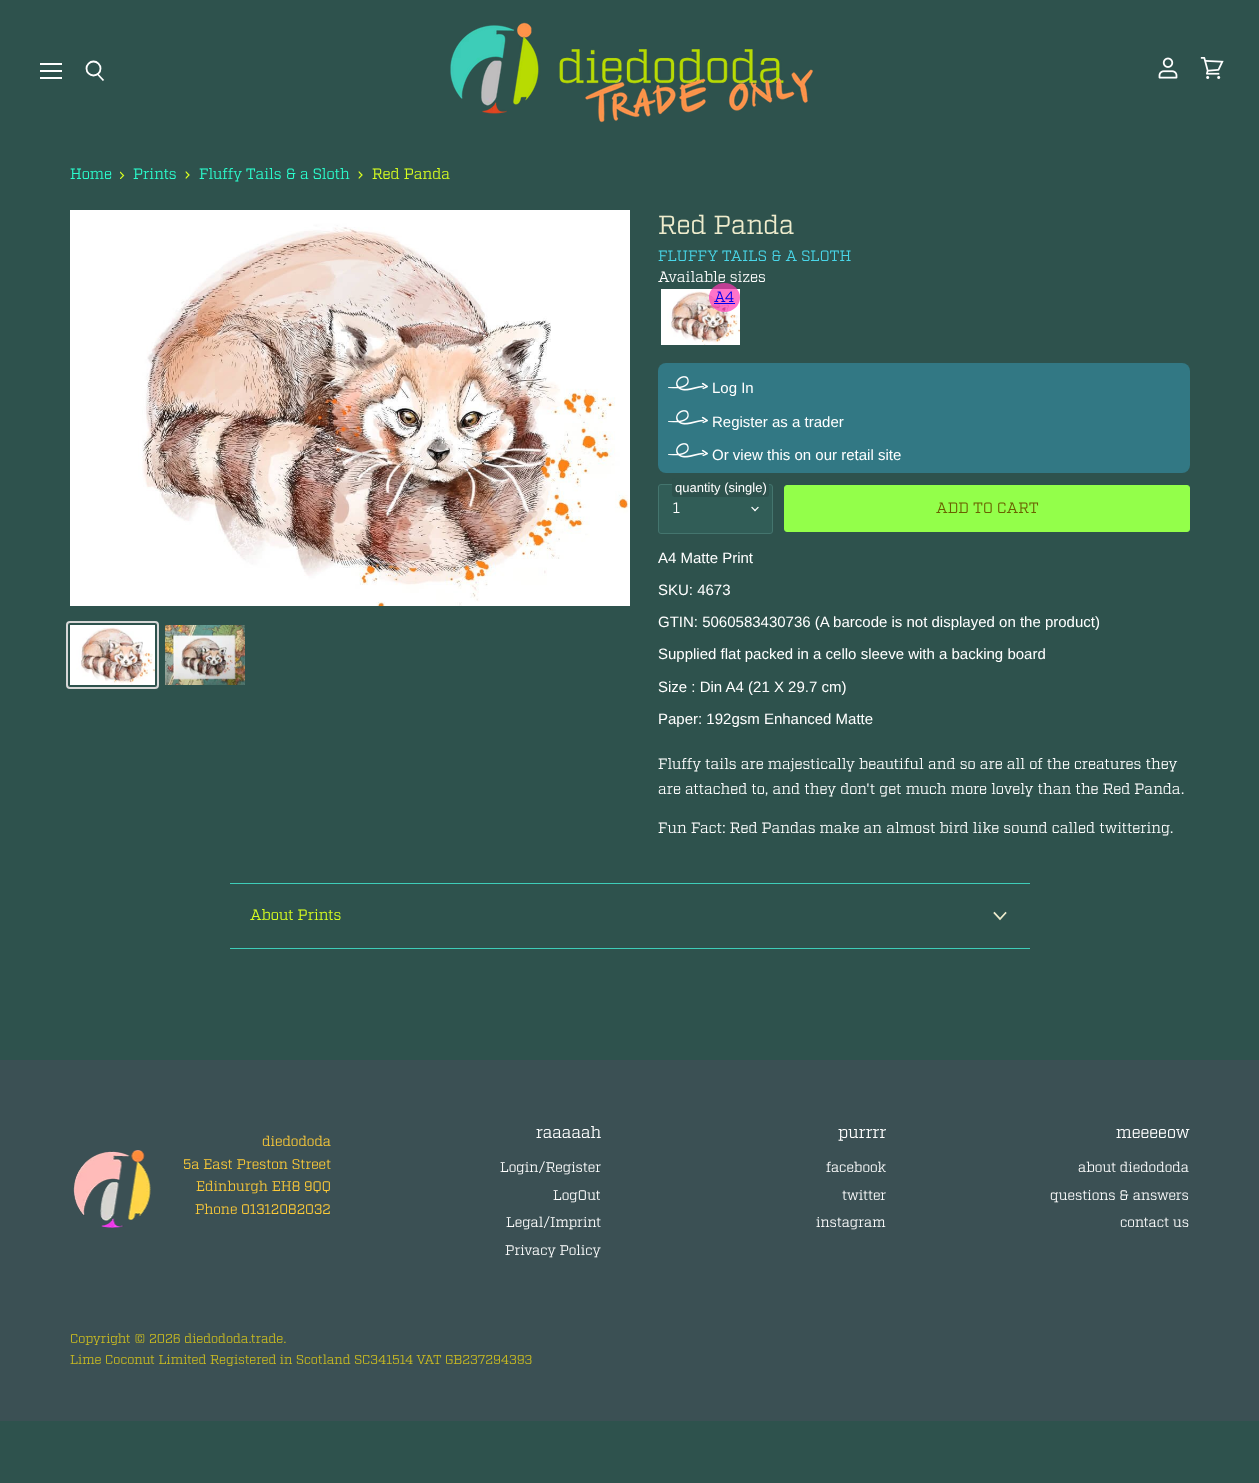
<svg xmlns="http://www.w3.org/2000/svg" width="1259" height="1483">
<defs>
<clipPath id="clip1"><path d="M120 179v-8h5v8z"/></clipPath>
<clipPath id="clip2"><path d="M185.5 179v-8h5v8z"/></clipPath>
<clipPath id="clip3"><path d="M358.5 179v-8h5v8z"/></clipPath>
</defs>
<rect width="100%" height="100%" fill="#2e524d"/>
<rect x="40" y="63" width="22" height="2" fill="#fff"/>
<rect x="40" y="70" width="22" height="2" fill="#fff"/>
<rect x="40" y="77" width="22" height="2" fill="#fff"/>
<path d="M103.5 80.5l-6-6.5" fill="none" stroke="#fff" stroke-width="1.8"/>
<circle cx="93.5" cy="68.5" r="7" fill="none" stroke="#fff" stroke-width="1.8"/>
<image x="450" y="22" width="363" height="101" href="media/1.png"/>
<image x="1158" y="57" width="20" height="22" href="media/2.png"/>
<image x="1200" y="57" width="24" height="22" href="media/3.png"/>
<text x="70" y="179" style="font-family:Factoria;font-size:15px;fill:#2bffcf">Home</text>
<g clip-path="url(#clip1)">
<path d="M120 179l3.5-3.5l-3.5-3.5" fill="none" stroke="#d9ff20" stroke-width="1.2"/>
</g>
<text x="133" y="179" style="font-family:Factoria;font-size:15px;fill:#2bffcf">Prints</text>
<g clip-path="url(#clip2)">
<path d="M185.5 178.5l3.5-3.5l-3.5-3.5" fill="none" stroke="#d9ff20" stroke-width="1.2"/>
</g>
<text x="199" y="179" style="font-family:Factoria;font-size:15px;fill:#2bffcf">Fluffy Tails &amp; a Sloth</text>
<g clip-path="url(#clip3)">
<path d="M358.5 178.5l3.5-3.5l-3.5-3.5" fill="none" stroke="#d9ff20" stroke-width="1.2"/>
</g>
<text x="372" y="179" style="font-family:Factoria;font-size:15px;fill:#d9ff20">Red Panda</text>
<image x="70" y="210" width="560" height="396" href="media/4.png"/>
<rect x="67" y="622" width="91" height="66" rx="3" fill="none" stroke="#d7d7d7" stroke-width="2"/>
<image x="70" y="625" width="85" height="60" href="media/5.png"/>
<image x="165" y="625" width="80" height="60" href="media/6.png"/>
<text x="658" y="234" style="font-family:Factoria;font-size:26.25px;fill:#eeeccd">Red Panda</text>
<text x="658" y="261" style="font-family:Factoria;font-size:15px;letter-spacing:0.15px;fill:#49d7e9">FLUFFY TAILS &amp; A SLOTH</text>
<text x="658" y="282" style="font-family:Factoria;font-size:15px;fill:#fff">Available sizes</text>
<image x="661" y="289" width="79" height="56" href="media/7.png"/>
<ellipse cx="724.5" cy="297.5" rx="15.5" ry="14.5" fill="#ff38b3b3"/>
<text x="714" y="302" style="font-family:Factoria;font-size:15px;fill:#00e">A4</text>
<rect x="714" y="303" width="21" height="1" fill="#00e"/>
<rect x="658" y="363" width="532" height="110" rx="8" fill="#327884"/>
<image x="668" y="376" width="40" height="15" href="media/8.png"/>
<text x="712" y="393" style="font-family:Liberation Sans;font-size:15px;fill:#fff">Log In</text>
<image x="668" y="410" width="40" height="15" href="media/8.png"/>
<text x="712" y="427" style="font-family:Liberation Sans;font-size:15px;fill:#fff">Register as a trader</text>
<image x="668" y="443" width="40" height="15" href="media/8.png"/>
<text x="712" y="460" style="font-family:Liberation Sans;font-size:15px;fill:#fff">Or view this on our retail site</text>
<rect x="658.5" y="484.5" width="114" height="49" rx="2.5" fill="#315d57" stroke="#44756e"/>
<rect x="672" y="478" width="97" height="19" rx="3" fill="#2d524d"/>
<text x="675" y="492" style="font-family:Liberation Sans;font-size:13px;fill:#fff">quantity (single)</text>
<text x="673" y="513" style="font-family:Factoria;font-size:15px;fill:#fff">1</text>
<image x="751" y="506" width="8" height="6" href="media/9.png"/>
<rect x="784.5" y="485.5" width="405" height="46" rx="2.5" fill="#93ff4a" stroke="#93ff4a"/>
<text x="936" y="513" style="font-family:Factoria;font-size:15px;letter-spacing:0.15px;fill:#6a6100">ADD TO CART</text>
<text x="658" y="563" style="font-family:Liberation Sans;font-size:15px;fill:#fff">A4 Matte Print</text>
<text x="658" y="595" style="font-family:Liberation Sans;font-size:15px;fill:#fff">SKU: 4673</text>
<text x="658" y="627" style="font-family:Liberation Sans;font-size:15px;fill:#fff">GTIN: 5060583430736 (A barcode is not displayed on the product)</text>
<text x="658" y="659" style="font-family:Liberation Sans;font-size:15px;fill:#fff">Supplied flat packed in a cello sleeve with a backing board</text>
<text x="658" y="692" style="font-family:Liberation Sans;font-size:15px;fill:#fff">Size : Din A4 (21 X 29.7 cm)</text>
<text x="658" y="724" style="font-family:Liberation Sans;font-size:15px;fill:#fff">Paper: 192gsm Enhanced Matte</text>
<text x="658" y="769" style="font-family:Factoria;font-size:15px;fill:#fff">Fluffy tails are majestically beautiful and so are all of the creatures they</text>
<text x="658" y="794" style="font-family:Factoria;font-size:15px;fill:#fff">are attached to, and they don't get much more lovely than the Red Panda.</text>
<text x="658" y="833" style="font-family:Factoria;font-size:15px;fill:#fff">Fun Fact: Red Pandas make an almost bird like sound called twittering.</text>
<rect x="230" y="883" width="800" height="1" fill="#3ecdb9"/>
<rect x="230" y="948" width="800" height="1" fill="#3ecdb9"/>
<text x="250" y="920" style="font-family:Factoria;font-size:15px;fill:#d9ff20">About Prints</text>
<path d="M1000 919l5.5-6m-5.5 6l-5.5-6" fill="none" stroke="#eeeccd" stroke-width="1.8" stroke-linecap="square"/>
<rect y="1060" width="1259" height="361" fill="#3b5054"/>
<image x="73" y="1150" width="78" height="78" href="media/10.png"/>
<text x="262" y="1146" style="font-family:Factoria;font-size:14px;fill:#ffcc38">diedododa</text>
<text x="183" y="1169" style="font-family:Factoria;font-size:14px;fill:#ffcc38">5a East Preston Street</text>
<text x="196" y="1191" style="font-family:Factoria;font-size:14px;fill:#ffcc38">Edinburgh EH8 9QQ</text>
<text x="195" y="1214" style="font-family:Factoria;font-size:14px;fill:#ffcc38">Phone 01312082032</text>
<text x="536" y="1138" style="font-family:Factoria;font-size:16.5px;fill:#fff">raaaaah</text>
<text x="500" y="1172" style="font-family:Factoria;font-size:14px;fill:#fff">Login/Register</text>
<text x="553" y="1200" style="font-family:Factoria;font-size:14px;fill:#fff">LogOut</text>
<text x="506" y="1227" style="font-family:Factoria;font-size:14px;fill:#fff">Legal/Imprint</text>
<text x="505" y="1255" style="font-family:Factoria;font-size:14px;fill:#fff">Privacy Policy</text>
<text x="838" y="1138" style="font-family:Factoria;font-size:16.5px;fill:#fff">purrrr</text>
<text x="826" y="1172" style="font-family:Factoria;font-size:14px;fill:#fff">facebook</text>
<text x="842" y="1200" style="font-family:Factoria;font-size:14px;fill:#fff">twitter</text>
<text x="816" y="1227" style="font-family:Factoria;font-size:14px;fill:#fff">instagram</text>
<text x="1116" y="1138" style="font-family:Factoria;font-size:16.5px;fill:#fff">meeeeow</text>
<text x="1078" y="1172" style="font-family:Factoria;font-size:14px;fill:#fff">about diedododa</text>
<text x="1050" y="1200" style="font-family:Factoria;font-size:14px;fill:#fff">questions &amp; answers</text>
<text x="1120" y="1227" style="font-family:Factoria;font-size:14px;fill:#fff">contact us</text>
<text x="70" y="1343" style="font-family:Factoria;font-size:13px;fill:#cabb21">Copyright © 2026 diedododa.trade.</text>
<text x="70" y="1364" style="font-family:Factoria;font-size:13px;fill:#cabb21">Lime Coconut Limited Registered in Scotland SC341514 VAT GB237294393</text>
</svg>
